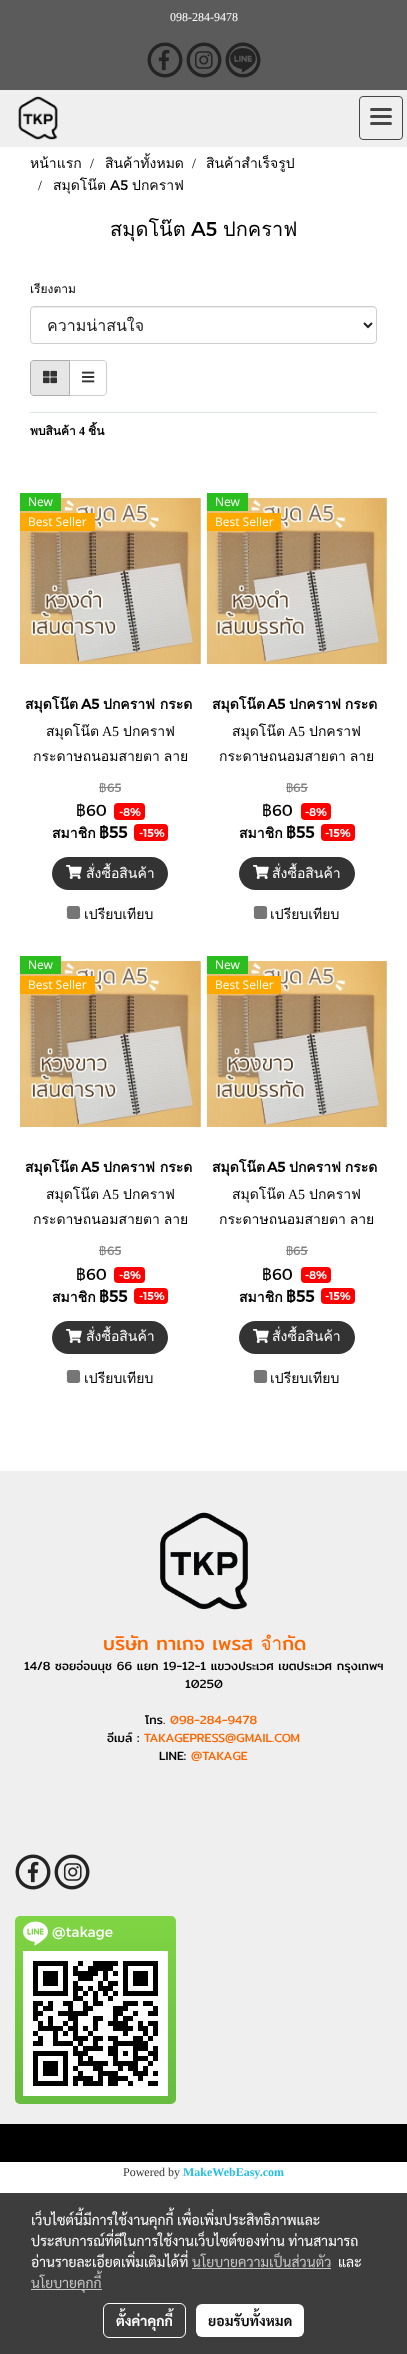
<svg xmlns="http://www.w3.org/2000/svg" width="407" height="2354">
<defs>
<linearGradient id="g1" gradientUnits="userSpaceOnUse" x1="95" y1="1916" x2="96" y2="2104"><stop offset="0" stop-color="#80d544"/><stop offset="1" stop-color="#65bc3e"/></linearGradient>
</defs>
<rect width="100%" height="100%" fill="#fff"/>
<rect y="90" width="407" height="57" fill="#efefef"/>
<rect width="407" height="90" fill="#5b5b5b"/>
<text x="170" y="21" style="font-family:Liberation Serif;font-size:12px;fill:#fff">098-284-9478</text>
<image x="147" y="42" width="36" height="36" href="media/1.png"/>
<image x="158" y="49" width="12" height="22" href="media/2.png"/>
<image x="186" y="42" width="36" height="36" href="media/1.png"/>
<image x="195" y="51" width="18" height="18" href="media/3.png"/>
<image x="225" y="42" width="36" height="36" href="media/1.png"/>
<image x="230" y="42" width="26" height="31" href="media/4.png"/>
<image x="18" y="96" width="40" height="44" href="media/5.png"/>
<rect x="359.5" y="96.5" width="43" height="43" rx="3.5" fill="none" stroke="#454545"/>
<rect x="370" y="115" width="22" height="3" rx="1.5" fill="#454545"/>
<rect x="370" y="108" width="22" height="3" rx="1.5" fill="#454545"/>
<rect x="370" y="122" width="22" height="3" rx="1.5" fill="#454545"/>
<text x="30" y="168" style="font-family:Loma;font-size:14px;fill:#000">หน้าแรก</text>
<text x="90" y="168" style="font-family:Liberation Serif;font-size:14px;fill:#000">/</text>
<text x="105" y="168" style="font-family:Loma;font-size:14px;fill:#000">สินค้าทั้งหมด</text>
<text x="192" y="168" style="font-family:Liberation Serif;font-size:14px;fill:#000">/</text>
<text x="206" y="168" style="font-family:Loma;font-size:14px;fill:#000">สินค้าสำเร็จรูป</text>
<text x="38" y="190" style="font-family:Liberation Serif;font-size:14px;fill:#000">/</text>
<text x="53" y="190" style="font-family:Loma;font-size:14px;fill:#000">สมุดโน๊ต</text>
<text x="110" y="190" style="font-family:Montserrat;font-size:14px;fill:#000">A5</text>
<text x="132" y="190" style="font-family:Loma;font-size:14px;fill:#000">ปกคราฟ</text>
<text x="110" y="236" style="font-family:Loma;font-size:20px;fill:#000">สมุดโน๊ต</text>
<text x="191" y="236" style="font-family:Montserrat;font-size:20px;fill:#000">A5</text>
<text x="223" y="236" style="font-family:Loma;font-size:20px;fill:#000">ปกคราฟ</text>
<text x="30" y="293" style="font-family:Loma;font-size:12px;fill:#000">เรียงตาม</text>
<path d="M34 308h339c2 0 3 1 3 3c0-2-1-4-3-4h-339l-2 1l-1 3c0-2 1-3 3-3z" fill="#ececec"/>
<rect x="30.5" y="306.5" width="346" height="37" rx="3.5" fill="none" stroke="#cdced2"/>
<path d="M364 323l4 4l4-4" fill="none" stroke="#212121" stroke-width="2"/>
<text x="47" y="331" style="font-family:Loma;font-size:16px;fill:#212121">ความน่าสนใจ</text>
<path d="M69.5 360.5h33.5c2 0 3.5 1.5 3.5 3.5v28c0 2-1.5 3.5-3.5 3.5h-33.5z" fill="none" stroke="#ccc"/>
<path d="M34 360.5h35.5v35h-35.5c-2 0-3.5-1.5-3.5-3.5v-28c0-2 1.5-3.5 3.5-3.5z" fill="#e6e6e6" stroke="#adadad"/>
<image x="43" y="370" width="14" height="14" href="media/6.png"/>
<image x="82" y="371" width="13" height="12" href="media/7.png"/>
<rect x="30" y="412" width="347" height="1" fill="#dee2e6"/>
<text x="30" y="435" style="font-family:Loma;font-size:12px;font-weight:bold;fill:#000">พบสินค้า</text>
<text x="79" y="435" style="font-family:Liberation Serif;font-size:12px;font-weight:bold;fill:#000">4</text>
<text x="88" y="435" style="font-family:Loma;font-size:12px;font-weight:bold;fill:#000">ชิ้น</text>
<image x="20" y="498" width="181" height="167" href="media/8.png"/>
<rect x="20" y="493" width="41" height="18" fill="#2bbe1f"/>
<text x="28" y="506" style="font-family:Open Sans;font-size:12px;fill:#fff">New</text>
<rect x="20" y="513" width="75" height="18" fill="#ffa800"/>
<text x="28" y="526" style="font-family:Open Sans;font-size:12px;fill:#fff">Best Seller</text>
<text x="25" y="709" style="font-family:Loma;font-size:14px;font-weight:bold;fill:#000">สมุดโน๊ต</text>
<text x="81" y="709" style="font-family:Montserrat;font-size:14px;font-weight:bold;fill:#000">A5</text>
<text x="103" y="709" style="font-family:Loma;font-size:14px;font-weight:bold;fill:#000">ปกคราฟ กระด</text>
<text x="46" y="736" style="font-family:Loma;font-size:14px;fill:#000">สมุดโน๊ต</text>
<text x="102" y="736" style="font-family:Liberation Serif;font-size:14px;fill:#000">A5</text>
<text x="123" y="736" style="font-family:Loma;font-size:14px;fill:#000">ปกคราฟ</text>
<text x="33" y="761" word-spacing="-1" style="font-family:Loma;font-size:14px;fill:#000">กระดาษถนอมสายตา ลาย</text>
<text x="99" y="792" style="font-family:Loma;font-size:12px;fill:#808080">฿</text>
<rect x="99" y="787" width="22" height="1" fill="#808080"/>
<text x="107" y="792" style="font-family:Montserrat;font-size:12px;fill:#808080">65</text>
<text x="76" y="816" style="font-family:Loma;font-size:16px;fill:#000">฿</text>
<text x="86" y="816" style="font-family:Montserrat;font-size:16px;fill:#000">60</text>
<rect x="114" y="803" width="31" height="17" rx="4" fill="#f00"/>
<text x="119" y="816" style="font-family:Montserrat;font-size:11px;font-weight:bold;fill:#fff">-8%</text>
<text x="52" y="838" style="font-family:Loma;font-size:14px;font-weight:bold;fill:#000">สมาชิก</text>
<text x="99" y="838" style="font-family:Loma;font-size:16px;font-weight:bold;fill:#000">฿</text>
<text x="109" y="838" style="font-family:Montserrat;font-size:16px;font-weight:bold;fill:#000">55</text>
<rect x="134" y="824" width="34" height="17" rx="4" fill="#f00"/>
<text x="139" y="837" style="font-family:Montserrat;font-size:11px;font-weight:bold;fill:#fff">-15%</text>
<rect x="52" y="857" width="116" height="33" rx="16.5" fill="#333"/>
<text x="86" y="878" style="font-family:Loma;font-size:14px;fill:#fff">สั่งซื้อสินค้า</text>
<image x="66" y="865" width="16" height="14" href="media/9.png"/>
<path d="M69 906h7.5c4.5 0 3.5 2.5 3.5 6.5c0 2 1 6.5-2 6.5h-7.5c-4.5 0-3.5-2.5-3.5-6.5c0-1.5-1-6.5 2-6.5z" fill="#767676"/>
<text x="84" y="919" style="font-family:Loma;font-size:14px;fill:#000">เปรียบเทียบ</text>
<image x="207" y="498" width="180" height="167" href="media/10.png"/>
<rect x="207" y="493" width="41" height="18" fill="#2bbe1f"/>
<text x="215" y="506" style="font-family:Open Sans;font-size:12px;fill:#fff">New</text>
<rect x="207" y="513" width="74" height="18" fill="#ffa800"/>
<text x="215" y="526" style="font-family:Open Sans;font-size:12px;fill:#fff">Best Seller</text>
<text x="212" y="709" style="font-family:Loma;font-size:14px;font-weight:bold;fill:#000">สมุดโน๊ต</text>
<text x="267" y="709" style="font-family:Montserrat;font-size:14px;font-weight:bold;fill:#000">A5</text>
<text x="289" y="709" word-spacing="-1" style="font-family:Loma;font-size:14px;font-weight:bold;fill:#000">ปกคราฟ กระด</text>
<text x="232" y="736" style="font-family:Loma;font-size:14px;fill:#000">สมุดโน๊ต</text>
<text x="288" y="736" style="font-family:Liberation Serif;font-size:14px;fill:#000">A5</text>
<text x="309" y="736" style="font-family:Loma;font-size:14px;fill:#000">ปกคราฟ</text>
<text x="219" y="761" word-spacing="-1" style="font-family:Loma;font-size:14px;fill:#000">กระดาษถนอมสายตา ลาย</text>
<text x="286" y="792" style="font-family:Loma;font-size:12px;fill:#808080">฿</text>
<rect x="286" y="787" width="22" height="1" fill="#808080"/>
<text x="293" y="792" style="font-family:Montserrat;font-size:12px;fill:#808080">65</text>
<text x="262" y="816" style="font-family:Loma;font-size:16px;fill:#000">฿</text>
<text x="272" y="816" style="font-family:Montserrat;font-size:16px;fill:#000">60</text>
<rect x="301" y="803" width="30" height="17" rx="4" fill="#f00"/>
<text x="305" y="816" style="font-family:Montserrat;font-size:11px;font-weight:bold;fill:#fff">-8%</text>
<text x="239" y="838" style="font-family:Loma;font-size:14px;font-weight:bold;fill:#000">สมาชิก</text>
<text x="286" y="838" style="font-family:Loma;font-size:16px;font-weight:bold;fill:#000">฿</text>
<text x="296" y="838" style="font-family:Montserrat;font-size:16px;font-weight:bold;fill:#000">55</text>
<rect x="321" y="824" width="34" height="17" rx="4" fill="#f00"/>
<text x="325" y="837" style="font-family:Montserrat;font-size:11px;font-weight:bold;fill:#fff">-15%</text>
<rect x="239" y="857" width="116" height="33" rx="16.5" fill="#333"/>
<text x="272" y="878" style="font-family:Loma;font-size:14px;fill:#fff">สั่งซื้อสินค้า</text>
<image x="253" y="865" width="16" height="14" href="media/11.png"/>
<path d="M256 906h7.5c4.5 0 3.5 2.5 3.5 6.5c0 2 1 6.5-2 6.5h-7.5c-4.5 0-3.5-2.5-3.5-6.5c0-1.5-1-6.5 2-6.5z" fill="#767676"/>
<text x="270" y="919" style="font-family:Loma;font-size:14px;fill:#000">เปรียบเทียบ</text>
<image x="20" y="961" width="181" height="167" href="media/12.png"/>
<rect x="20" y="956" width="41" height="18" fill="#2bbe1f"/>
<text x="28" y="969" style="font-family:Open Sans;font-size:12px;fill:#fff">New</text>
<rect x="20" y="976" width="75" height="18" fill="#ffa800"/>
<text x="28" y="989" style="font-family:Open Sans;font-size:12px;fill:#fff">Best Seller</text>
<text x="25" y="1172" style="font-family:Loma;font-size:14px;font-weight:bold;fill:#000">สมุดโน๊ต</text>
<text x="81" y="1172" style="font-family:Montserrat;font-size:14px;font-weight:bold;fill:#000">A5</text>
<text x="103" y="1172" style="font-family:Loma;font-size:14px;font-weight:bold;fill:#000">ปกคราฟ กระด</text>
<text x="46" y="1199" style="font-family:Loma;font-size:14px;fill:#000">สมุดโน๊ต</text>
<text x="102" y="1199" style="font-family:Liberation Serif;font-size:14px;fill:#000">A5</text>
<text x="123" y="1199" style="font-family:Loma;font-size:14px;fill:#000">ปกคราฟ</text>
<text x="33" y="1224" word-spacing="-1" style="font-family:Loma;font-size:14px;fill:#000">กระดาษถนอมสายตา ลาย</text>
<text x="99" y="1255" style="font-family:Loma;font-size:12px;fill:#808080">฿</text>
<rect x="99" y="1250" width="22" height="1" fill="#808080"/>
<text x="107" y="1255" style="font-family:Montserrat;font-size:12px;fill:#808080">65</text>
<text x="76" y="1280" style="font-family:Loma;font-size:16px;fill:#000">฿</text>
<text x="86" y="1280" style="font-family:Montserrat;font-size:16px;fill:#000">60</text>
<rect x="114" y="1267" width="31" height="16" rx="4" fill="#f00"/>
<text x="119" y="1279" style="font-family:Montserrat;font-size:11px;font-weight:bold;fill:#fff">-8%</text>
<text x="52" y="1302" style="font-family:Loma;font-size:14px;font-weight:bold;fill:#000">สมาชิก</text>
<text x="99" y="1302" style="font-family:Loma;font-size:16px;font-weight:bold;fill:#000">฿</text>
<text x="109" y="1302" style="font-family:Montserrat;font-size:16px;font-weight:bold;fill:#000">55</text>
<rect x="134" y="1288" width="34" height="16" rx="4" fill="#f00"/>
<text x="139" y="1300" style="font-family:Montserrat;font-size:11px;font-weight:bold;fill:#fff">-15%</text>
<rect x="52" y="1321" width="116" height="33" rx="16.5" fill="#333"/>
<text x="86" y="1341" style="font-family:Loma;font-size:14px;fill:#fff">สั่งซื้อสินค้า</text>
<image x="66" y="1329" width="16" height="14" href="media/13.png"/>
<path d="M69 1370h7.5c4.5 0 3.5 2.5 3.5 6.5c0 2 1 6.5-2 6.5h-7.5c-4.5 0-3.5-2.5-3.5-6.5c0-1.5-1-6.5 2-6.5z" fill="#767676"/>
<text x="84" y="1383" style="font-family:Loma;font-size:14px;fill:#000">เปรียบเทียบ</text>
<image x="207" y="961" width="180" height="167" href="media/14.png"/>
<rect x="207" y="956" width="41" height="18" fill="#2bbe1f"/>
<text x="215" y="969" style="font-family:Open Sans;font-size:12px;fill:#fff">New</text>
<rect x="207" y="976" width="74" height="18" fill="#ffa800"/>
<text x="215" y="989" style="font-family:Open Sans;font-size:12px;fill:#fff">Best Seller</text>
<text x="212" y="1172" style="font-family:Loma;font-size:14px;font-weight:bold;fill:#000">สมุดโน๊ต</text>
<text x="267" y="1172" style="font-family:Montserrat;font-size:14px;font-weight:bold;fill:#000">A5</text>
<text x="289" y="1172" word-spacing="-1" style="font-family:Loma;font-size:14px;font-weight:bold;fill:#000">ปกคราฟ กระด</text>
<text x="232" y="1199" style="font-family:Loma;font-size:14px;fill:#000">สมุดโน๊ต</text>
<text x="288" y="1199" style="font-family:Liberation Serif;font-size:14px;fill:#000">A5</text>
<text x="309" y="1199" style="font-family:Loma;font-size:14px;fill:#000">ปกคราฟ</text>
<text x="219" y="1224" word-spacing="-1" style="font-family:Loma;font-size:14px;fill:#000">กระดาษถนอมสายตา ลาย</text>
<text x="286" y="1255" style="font-family:Loma;font-size:12px;fill:#808080">฿</text>
<rect x="286" y="1250" width="22" height="1" fill="#808080"/>
<text x="293" y="1255" style="font-family:Montserrat;font-size:12px;fill:#808080">65</text>
<text x="262" y="1280" style="font-family:Loma;font-size:16px;fill:#000">฿</text>
<text x="272" y="1280" style="font-family:Montserrat;font-size:16px;fill:#000">60</text>
<rect x="301" y="1267" width="30" height="16" rx="4" fill="#f00"/>
<text x="305" y="1279" style="font-family:Montserrat;font-size:11px;font-weight:bold;fill:#fff">-8%</text>
<text x="239" y="1302" style="font-family:Loma;font-size:14px;font-weight:bold;fill:#000">สมาชิก</text>
<text x="286" y="1302" style="font-family:Loma;font-size:16px;font-weight:bold;fill:#000">฿</text>
<text x="296" y="1302" style="font-family:Montserrat;font-size:16px;font-weight:bold;fill:#000">55</text>
<rect x="321" y="1288" width="34" height="16" rx="4" fill="#f00"/>
<text x="325" y="1300" style="font-family:Montserrat;font-size:11px;font-weight:bold;fill:#fff">-15%</text>
<rect x="239" y="1321" width="116" height="33" rx="16.5" fill="#333"/>
<text x="272" y="1341" style="font-family:Loma;font-size:14px;fill:#fff">สั่งซื้อสินค้า</text>
<image x="253" y="1329" width="16" height="14" href="media/15.png"/>
<path d="M256 1370h7.5c4.5 0 3.5 2.5 3.5 6.5c0 2 1 6.5-2 6.5h-7.5c-4.5 0-3.5-2.5-3.5-6.5c0-1.5-1-6.5 2-6.5z" fill="#767676"/>
<text x="270" y="1383" style="font-family:Loma;font-size:14px;fill:#000">เปรียบเทียบ</text>
<rect y="1471" width="407" height="653" fill="#efefef"/>
<image x="160" y="1512" width="88" height="98" href="media/16.png"/>
<text x="103" y="1650" style="font-family:Mitr;font-size:19px;fill:#f60">บริษัท ทาเกจ เพรส จำกัด</text>
<text x="24" y="1670" style="font-family:Mitr;font-size:12px;fill:#000">14/8 ซอยอ่อนนุช 66 แยก 19-12-1 แขวงประเวศ เขตประเวศ กรุงเทพฯ</text>
<text x="185" y="1688" style="font-family:Mitr;font-size:12px;fill:#000">10250</text>
<text x="145" y="1724" style="font-family:Mitr;font-size:12px;fill:#000">โทร.</text>
<text x="170" y="1724" style="font-family:Mitr;font-size:12px;fill:#f60">098-284-9478</text>
<text x="107" y="1742" style="font-family:Mitr;font-size:12px;fill:#000">อีเมล์ :</text>
<text x="144" y="1742" style="font-family:Mitr;font-size:12px;fill:#f60">TAKAGEPRESS@GMAIL.COM</text>
<text x="159" y="1760" style="font-family:Mitr;font-size:12px;fill:#000">LINE:</text>
<text x="191" y="1760" style="font-family:Mitr;font-size:12px;fill:#f60">@TAKAGE</text>
<image x="15" y="1854" width="36" height="36" href="media/17.png"/>
<image x="27" y="1861" width="12" height="22" href="media/18.png"/>
<image x="54" y="1854" width="36" height="36" href="media/17.png"/>
<image x="63" y="1863" width="19" height="18" href="media/19.png"/>
<rect x="15" y="1916" width="161" height="188" rx="5" fill="url(#g1)"/>
<image x="23" y="1921" width="25" height="25" href="media/20.png"/>
<text x="52" y="1937" style="font-family:Montserrat;font-size:14px;fill:#fff">@takage</text>
<image x="23" y="1951" width="145" height="145" href="media/21.png"/>
<rect y="2124" width="407" height="38" fill="#000"/>
<text x="123" y="2176" style="font-family:Liberation Serif;font-size:12px;fill:#353535">Powered by</text>
<text x="183" y="2176" style="font-family:Liberation Serif;font-size:12px;font-weight:bold;fill:#28bee3">MakeWebEasy.com</text>
<rect y="2193" width="407" height="161" fill="#3d3d3d"/>
<text x="31" y="2225" style="font-family:Sarabun;font-size:14px;fill:#fff">เว็บไซต์นี้มีการใช้งานคุกกี้ เพื่อเพิ่มประสิทธิภาพและ</text>
<text x="31" y="2246" style="font-family:Sarabun;font-size:14px;fill:#fff">ประสบการณ์ที่ดีในการใช้งานเว็บไซต์ของท่าน ท่านสามารถ</text>
<text x="31" y="2267" style="font-family:Sarabun;font-size:14px;fill:#fff">อ่านรายละเอียดเพิ่มเติมได้ที่</text>
<text x="192" y="2267" style="font-family:Sarabun;font-size:14px;fill:#c5c5c5">นโยบายความเป็นส่วนตัว</text>
<rect x="192" y="2268" width="139" height="1" fill="#c5c5c5"/>
<text x="338" y="2267" style="font-family:Sarabun;font-size:14px;fill:#fff">และ</text>
<rect x="31" y="2289" width="71" height="1" fill="#c5c5c5"/>
<text x="31" y="2288" style="font-family:Sarabun;font-size:14px;fill:#c5c5c5">นโยบายคุกกี้</text>
<rect x="103.5" y="2303.5" width="82" height="34" rx="5.5" fill="none" stroke="#fff"/>
<text x="116" y="2326" style="font-family:Sarabun;font-size:14px;font-weight:bold;fill:#fff">ตั้งค่าคุกกี้</text>
<rect x="196" y="2304" width="108" height="33" rx="6" fill="#fff"/>
<text x="208" y="2326" style="font-family:Sarabun;font-size:14px;font-weight:bold;fill:#0d0d0d">ยอมรับทั้งหมด</text>
</svg>
